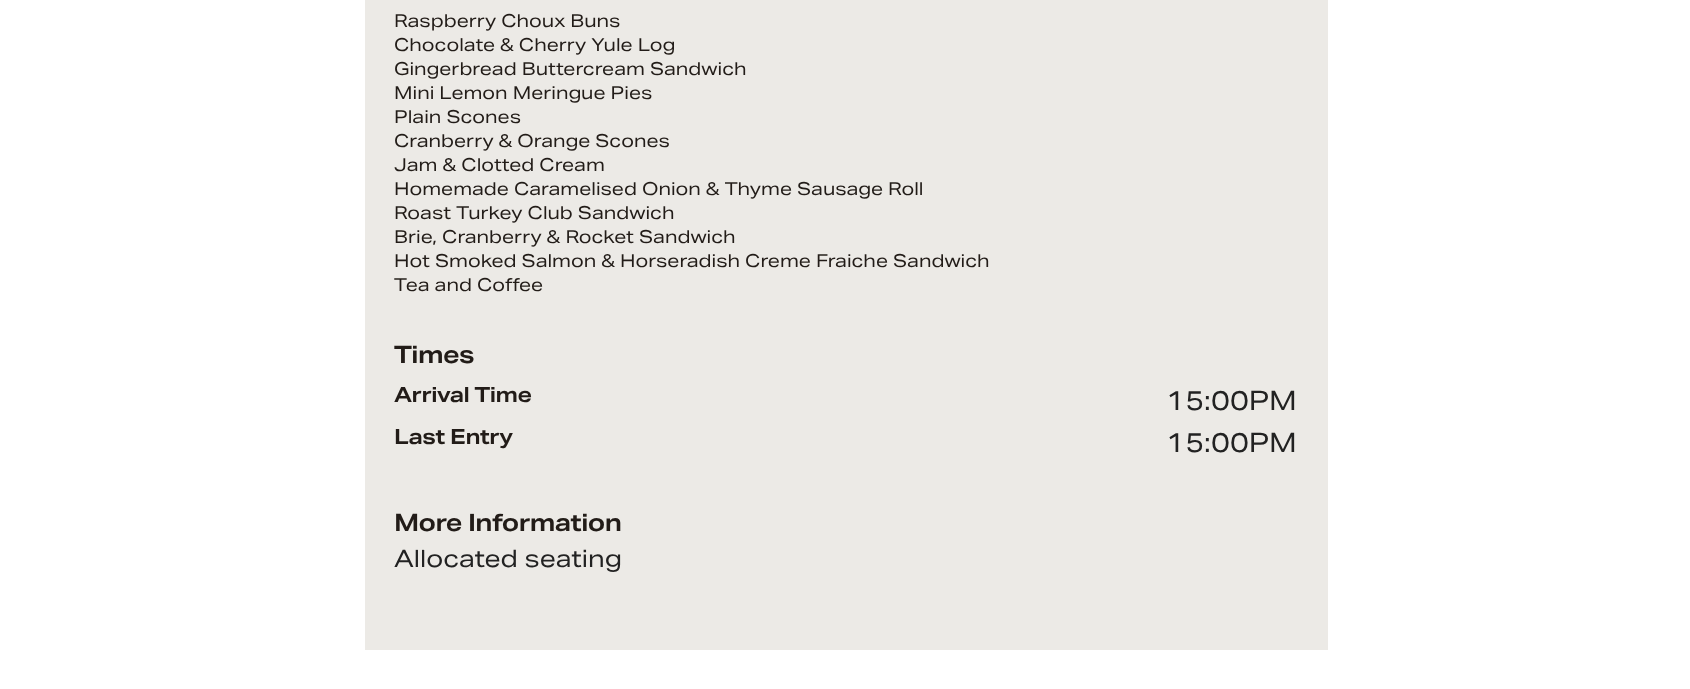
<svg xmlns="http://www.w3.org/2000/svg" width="1690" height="689">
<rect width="100%" height="100%" fill="#fff"/>
<rect x="365" width="963" height="650" fill="#eceae6"/>
<text x="394" y="27" style="font-family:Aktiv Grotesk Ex;font-size:18px;fill:#221c18">Raspberry Choux Buns</text>
<text x="394" y="51" style="font-family:Aktiv Grotesk Ex;font-size:18px;fill:#221c18">Chocolate &amp; Cherry Yule Log</text>
<text x="394" y="75" style="font-family:Aktiv Grotesk Ex;font-size:18px;fill:#221c18">Gingerbread Buttercream Sandwich</text>
<text x="394" y="99" style="font-family:Aktiv Grotesk Ex;font-size:18px;fill:#221c18">Mini Lemon Meringue Pies</text>
<text x="394" y="123" style="font-family:Aktiv Grotesk Ex;font-size:18px;fill:#221c18">Plain Scones</text>
<text x="394" y="147" style="font-family:Aktiv Grotesk Ex;font-size:18px;fill:#221c18">Cranberry &amp; Orange Scones</text>
<text x="394" y="171" style="font-family:Aktiv Grotesk Ex;font-size:18px;fill:#221c18">Jam &amp; Clotted Cream</text>
<text x="394" y="195" style="font-family:Aktiv Grotesk Ex;font-size:18px;fill:#221c18">Homemade Caramelised Onion &amp; Thyme Sausage Roll</text>
<text x="394" y="219" style="font-family:Aktiv Grotesk Ex;font-size:18px;fill:#221c18">Roast Turkey Club Sandwich</text>
<text x="394" y="243" style="font-family:Aktiv Grotesk Ex;font-size:18px;fill:#221c18">Brie, Cranberry &amp; Rocket Sandwich</text>
<text x="394" y="267" style="font-family:Aktiv Grotesk Ex;font-size:18px;fill:#221c18">Hot Smoked Salmon &amp; Horseradish Creme Fraiche Sandwich</text>
<text x="394" y="291" style="font-family:Aktiv Grotesk Ex;font-size:18px;fill:#221c18">Tea and Coffee</text>
<text x="394" y="363" style="font-family:Aktiv Grotesk Ex;font-size:24px;font-weight:bold;letter-spacing:-0.6px;fill:#221c18">Times</text>
<text x="394" y="402" style="font-family:Aktiv Grotesk Ex;font-size:21px;font-weight:bold;letter-spacing:-0.5px;fill:#221c18">Arrival Time</text>
<text x="1166" y="410" style="font-family:Aktiv Grotesk Ex;font-size:27px;fill:#222">15:00PM</text>
<text x="394" y="444" style="font-family:Aktiv Grotesk Ex;font-size:21px;font-weight:bold;letter-spacing:-0.5px;fill:#221c18">Last Entry</text>
<text x="1166" y="452" style="font-family:Aktiv Grotesk Ex;font-size:27px;fill:#222">15:00PM</text>
<text x="394" y="531" style="font-family:Aktiv Grotesk Ex;font-size:24px;font-weight:bold;letter-spacing:-0.6px;fill:#221c18">More Information</text>
<text x="394" y="567" style="font-family:Aktiv Grotesk Ex;font-size:24px;fill:#222">Allocated seating</text>
</svg>
